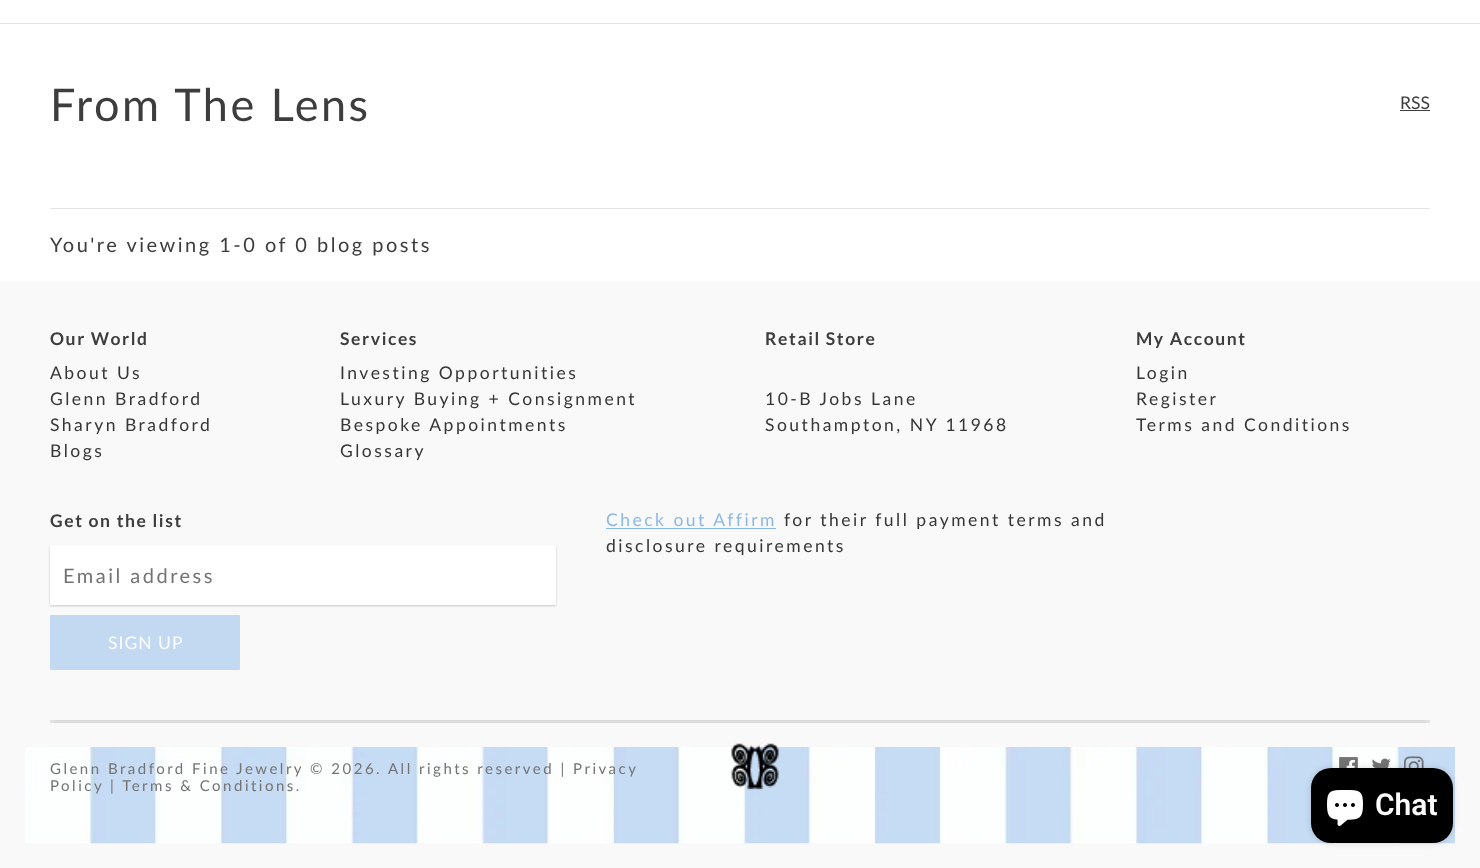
<svg xmlns="http://www.w3.org/2000/svg" width="1480" height="868">
<rect width="100%" height="100%" fill="#fff"/>
<rect y="23" width="1480" height="1" fill="#e2e2e2"/>
<text x="50" y="121" style="font-family:Lato;font-size:45px;letter-spacing:2.5px;fill:#3d3d3d">From The Lens</text>
<text x="1400" y="109" style="font-family:Lato;font-size:17.5px;fill:#3d3d3d">RSS</text>
<rect x="1400" y="110" width="30" height="1" fill="#3d3d3d"/>
<rect x="50" y="208" width="1380" height="1" fill="#e2e2e2"/>
<text x="50" y="252" style="font-family:Lato;font-size:20px;letter-spacing:2.5px;fill:#3d3d3d">You're viewing 1-0 of 0 blog posts</text>
<rect y="281" width="1480" height="587" fill="#f9f9f9"/>
<text x="50" y="345" style="font-family:Lato;font-size:17.5px;font-weight:bold;letter-spacing:1.6px;fill:#3d3d3d">Our World</text>
<text x="50" y="379" style="font-family:Lato;font-size:17.5px;letter-spacing:2.5px;fill:#363636">About Us</text>
<text x="50" y="405" style="font-family:Lato;font-size:17.5px;letter-spacing:2.5px;fill:#363636">Glenn Bradford</text>
<text x="50" y="431" style="font-family:Lato;font-size:17.5px;letter-spacing:2.5px;fill:#363636">Sharyn Bradford</text>
<text x="50" y="457" style="font-family:Lato;font-size:17.5px;letter-spacing:2.5px;fill:#363636">Blogs</text>
<text x="340" y="345" style="font-family:Lato;font-size:17.5px;font-weight:bold;letter-spacing:1.6px;fill:#3d3d3d">Services</text>
<text x="340" y="379" style="font-family:Lato;font-size:17.5px;letter-spacing:2.5px;fill:#363636">Investing Opportunities</text>
<text x="340" y="405" style="font-family:Lato;font-size:17.5px;letter-spacing:2.5px;fill:#363636">Luxury Buying + Consignment</text>
<text x="340" y="431" style="font-family:Lato;font-size:17.5px;letter-spacing:2.5px;fill:#363636">Bespoke Appointments</text>
<text x="340" y="457" style="font-family:Lato;font-size:17.5px;letter-spacing:2.5px;fill:#363636">Glossary</text>
<text x="765" y="345" style="font-family:Lato;font-size:17.5px;font-weight:bold;letter-spacing:1.6px;fill:#3d3d3d">Retail Store</text>
<text x="765" y="405" style="font-family:Lato;font-size:17.5px;letter-spacing:2.5px;fill:#363636">10-B Jobs Lane</text>
<text x="765" y="431" style="font-family:Lato;font-size:17.5px;letter-spacing:2.5px;fill:#363636">Southampton, NY 11968</text>
<text x="1136" y="345" style="font-family:Lato;font-size:17.5px;font-weight:bold;letter-spacing:1.6px;fill:#3d3d3d">My Account</text>
<text x="1136" y="379" style="font-family:Lato;font-size:17.5px;letter-spacing:2.5px;fill:#363636">Login</text>
<text x="1136" y="405" style="font-family:Lato;font-size:17.5px;letter-spacing:2.5px;fill:#363636">Register</text>
<text x="1136" y="431" style="font-family:Lato;font-size:17.5px;letter-spacing:2.5px;fill:#363636">Terms and Conditions</text>
<text x="50" y="527" style="font-family:Lato;font-size:17.5px;font-weight:bold;letter-spacing:1.6px;fill:#3d3d3d">Get on the list</text>
<rect x="50" y="546" width="506" height="60" fill="#00000033" filter="blur(1px)"/>
<rect x="50" y="545" width="506" height="60" fill="#fff"/>
<text x="63" y="583" style="font-family:Lato;font-size:20px;letter-spacing:2.5px;fill:#737373">Email address</text>
<rect x="50" y="615" width="190" height="55" rx="1" fill="#c2d9f1"/>
<text x="108" y="649" style="font-family:Lato;font-size:17.5px;letter-spacing:1px;fill:#fcfcfc">SIGN UP</text>
<text x="606" y="526" style="font-family:Lato;font-size:17.5px;letter-spacing:2.5px;fill:#8bb8e8">Check out Affirm</text>
<rect x="606" y="528" width="170" height="1" fill="#8bb8e8"/>
<text x="784" y="526" style="font-family:Lato;font-size:17.5px;letter-spacing:2.5px;fill:#363636">for their full payment terms and</text>
<text x="606" y="552" style="font-family:Lato;font-size:17.5px;letter-spacing:2.5px;fill:#363636">disclosure requirements</text>
<rect x="50" y="720" width="1380" height="3" fill="#d8d8d8"/>
<rect x="1426" y="720" width="4" height="3" fill="#e2e2e2"/>
<rect x="50" y="721" width="1380" height="1" fill="#e2e2e2"/>
<rect x="50" y="720" width="4" height="3" fill="#e2e2e2"/>
<image x="25" y="747" width="1430" height="97" href="media/1.png"/>
<text x="50" y="774" style="font-family:Lato;font-size:15px;letter-spacing:2.5px;fill:#737373">Glenn Bradford Fine Jewelry</text>
<text x="310" y="774" style="font-family:Lato;font-size:15px;letter-spacing:2.5px;fill:#737373">© 2026. All rights reserved | Privacy</text>
<text x="50" y="791" style="font-family:Lato;font-size:15px;letter-spacing:2.5px;fill:#737373">Policy</text>
<text x="110" y="791" style="font-family:Lato;font-size:15px;letter-spacing:2.5px;fill:#737373">| Terms &amp; Conditions.</text>
<image x="731" y="743" width="48" height="47" href="media/2.png"/>
<image x="1339" y="757" width="19" height="11" href="media/3.png"/>
<image x="1372" y="758" width="19" height="10" href="media/4.png"/>
<image x="1404" y="756" width="20" height="12" href="media/5.png"/>
<rect x="1311" y="768" width="142" height="75" rx="20" fill="#00000026" filter="blur(3px)"/>
<rect x="1311" y="768" width="142" height="75" rx="20" fill="#000"/>
<image x="1327" y="790" width="36" height="36" href="media/6.png"/>
<text x="1375" y="815" style="font-family:Roboto;font-size:30px;font-weight:600;fill:#fcfcfc">Chat</text>
</svg>
